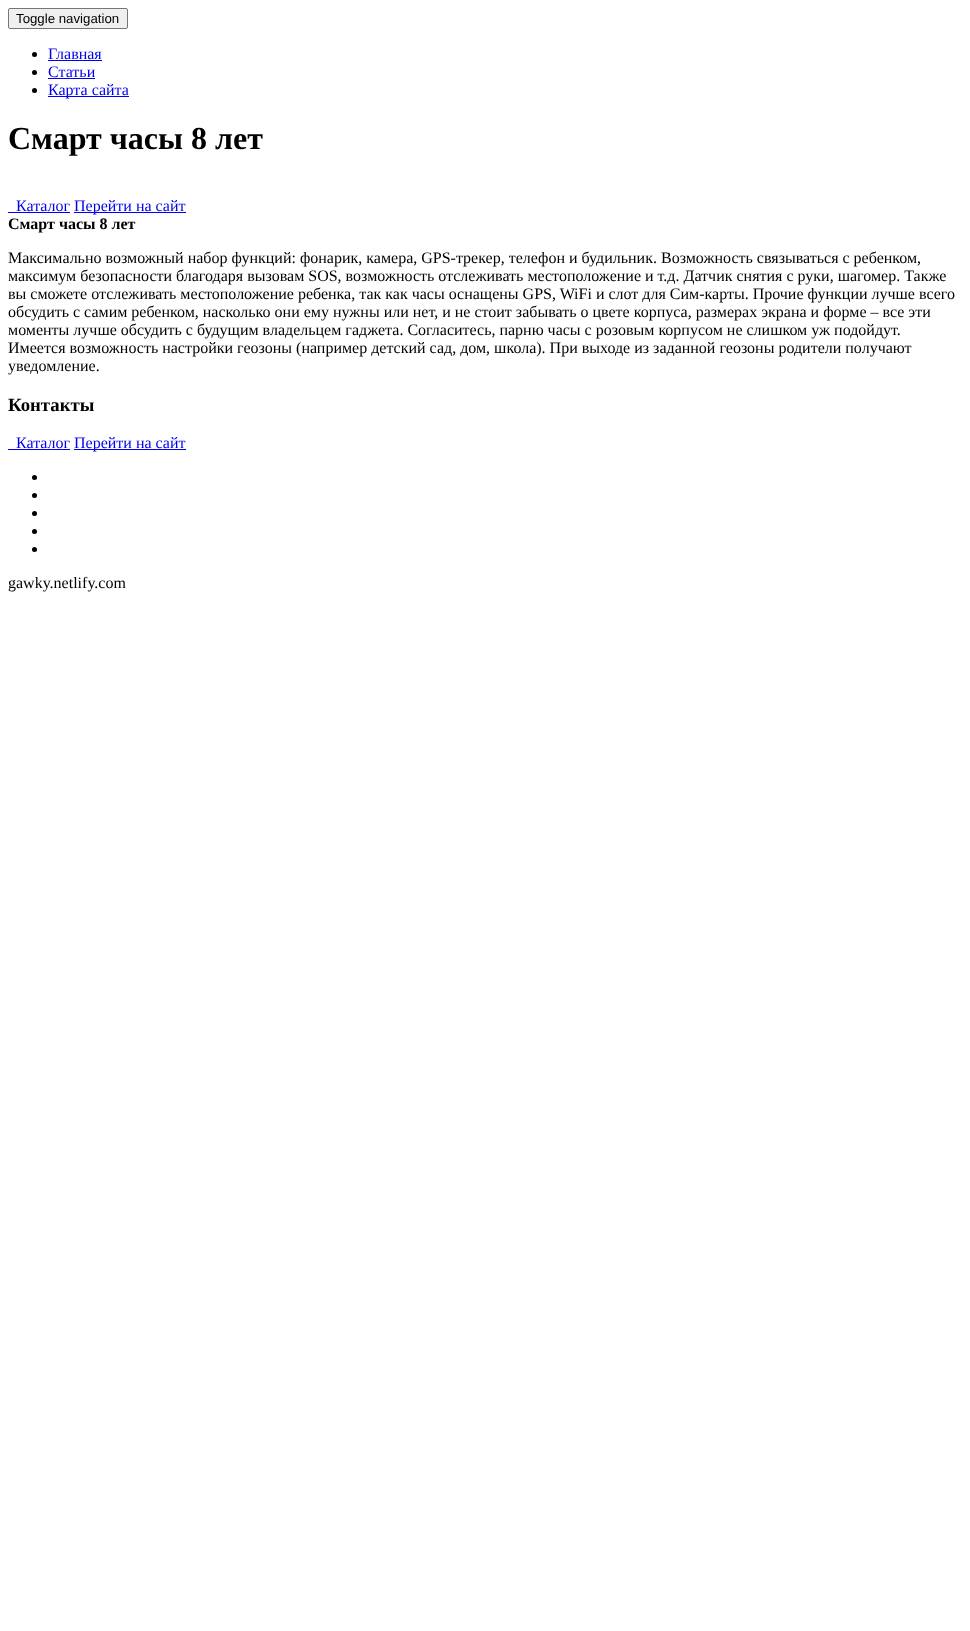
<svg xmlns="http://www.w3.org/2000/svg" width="970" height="1631">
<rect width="100%" height="100%" fill="#fff"/>
<rect x="8.5" y="8.5" width="119" height="20" rx="1.5" fill="#efefef" stroke="#767676"/>
<text x="16" y="23" style="font-family:Liberation Sans;font-size:13.25px;fill:#000">Toggle navigation</text>
<circle cx="34.5" cy="54.5" r="2.5" fill="#000"/>
<text x="48" y="59" style="font-family:Liberation Serif;font-size:16px;fill:#00e">Главная</text>
<rect x="48" y="60" width="54" height="1" fill="#00e"/>
<circle cx="34.5" cy="72.5" r="2.5" fill="#000"/>
<text x="48" y="77" style="font-family:Liberation Serif;font-size:16px;fill:#00e">Статьи</text>
<rect x="48" y="78" width="47" height="1" fill="#00e"/>
<circle cx="34.5" cy="90.5" r="2.5" fill="#000"/>
<rect x="48" y="96" width="81" height="1" fill="#00e"/>
<text x="48" y="95" style="font-family:Liberation Serif;font-size:16px;fill:#00e">Карта сайта</text>
<text x="8" y="149" style="font-family:Liberation Serif;font-size:32px;font-weight:bold;fill:#000">Смарт часы 8 лет</text>
<text x="16" y="211" style="font-family:Liberation Serif;font-size:16px;fill:#00e">Каталог</text>
<rect x="8" y="212" width="62" height="1" fill="#00e"/>
<rect x="74" y="212" width="112" height="1" fill="#00e"/>
<text x="74" y="211" style="font-family:Liberation Serif;font-size:16px;fill:#00e">Перейти на сайт</text>
<text x="8" y="229" style="font-family:Liberation Serif;font-size:16px;font-weight:bold;fill:#000">Смарт часы 8 лет</text>
<text x="8" y="263" style="font-family:Liberation Serif;font-size:16px;fill:#000">Максимально возможный набор функций: фонарик, камера, GPS-трекер, телефон и будильник. Возможность связываться с ребенком,</text>
<text x="8" y="281" style="font-family:Liberation Serif;font-size:16px;fill:#000">максимум безопасности благодаря вызовам SOS, возможность отслеживать местоположение и т.д. Датчик снятия с руки, шагомер. Также</text>
<text x="8" y="299" style="font-family:Liberation Serif;font-size:16px;fill:#000">вы сможете отслеживать местоположение ребенка, так как часы оснащены GPS, WiFi и слот для Сим-карты. Прочие функции лучше всего</text>
<text x="8" y="317" style="font-family:Liberation Serif;font-size:16px;fill:#000">обсудить с самим ребенком, насколько они ему нужны или нет, и не стоит забывать о цвете корпуса, размерах экрана и форме – все эти</text>
<text x="8" y="335" style="font-family:Liberation Serif;font-size:16px;fill:#000">моменты лучше обсудить с будущим владельцем гаджета. Согласитесь, парню часы с розовым корпусом не слишком уж подойдут.</text>
<text x="8" y="353" style="font-family:Liberation Serif;font-size:16px;fill:#000">Имеется возможность настройки геозоны (например детский сад, дом, школа). При выходе из заданной геозоны родители получают</text>
<text x="8" y="371" style="font-family:Liberation Serif;font-size:16px;fill:#000">уведомление.</text>
<text x="8" y="411" style="font-family:Liberation Serif;font-size:18.75px;font-weight:bold;fill:#000">Контакты</text>
<text x="16" y="448" style="font-family:Liberation Serif;font-size:16px;fill:#00e">Каталог</text>
<rect x="8" y="449" width="62" height="1" fill="#00e"/>
<rect x="74" y="449" width="112" height="1" fill="#00e"/>
<text x="74" y="448" style="font-family:Liberation Serif;font-size:16px;fill:#00e">Перейти на сайт</text>
<circle cx="34.5" cy="477.5" r="2.5" fill="#000"/>
<circle cx="34.5" cy="495.5" r="2.5" fill="#000"/>
<circle cx="34.5" cy="513.5" r="2.5" fill="#000"/>
<circle cx="34.5" cy="531.5" r="2.5" fill="#000"/>
<circle cx="34.5" cy="549.5" r="2.5" fill="#000"/>
<text x="8" y="588" style="font-family:Liberation Serif;font-size:16px;fill:#000">gawky.netlify.com</text>
</svg>
